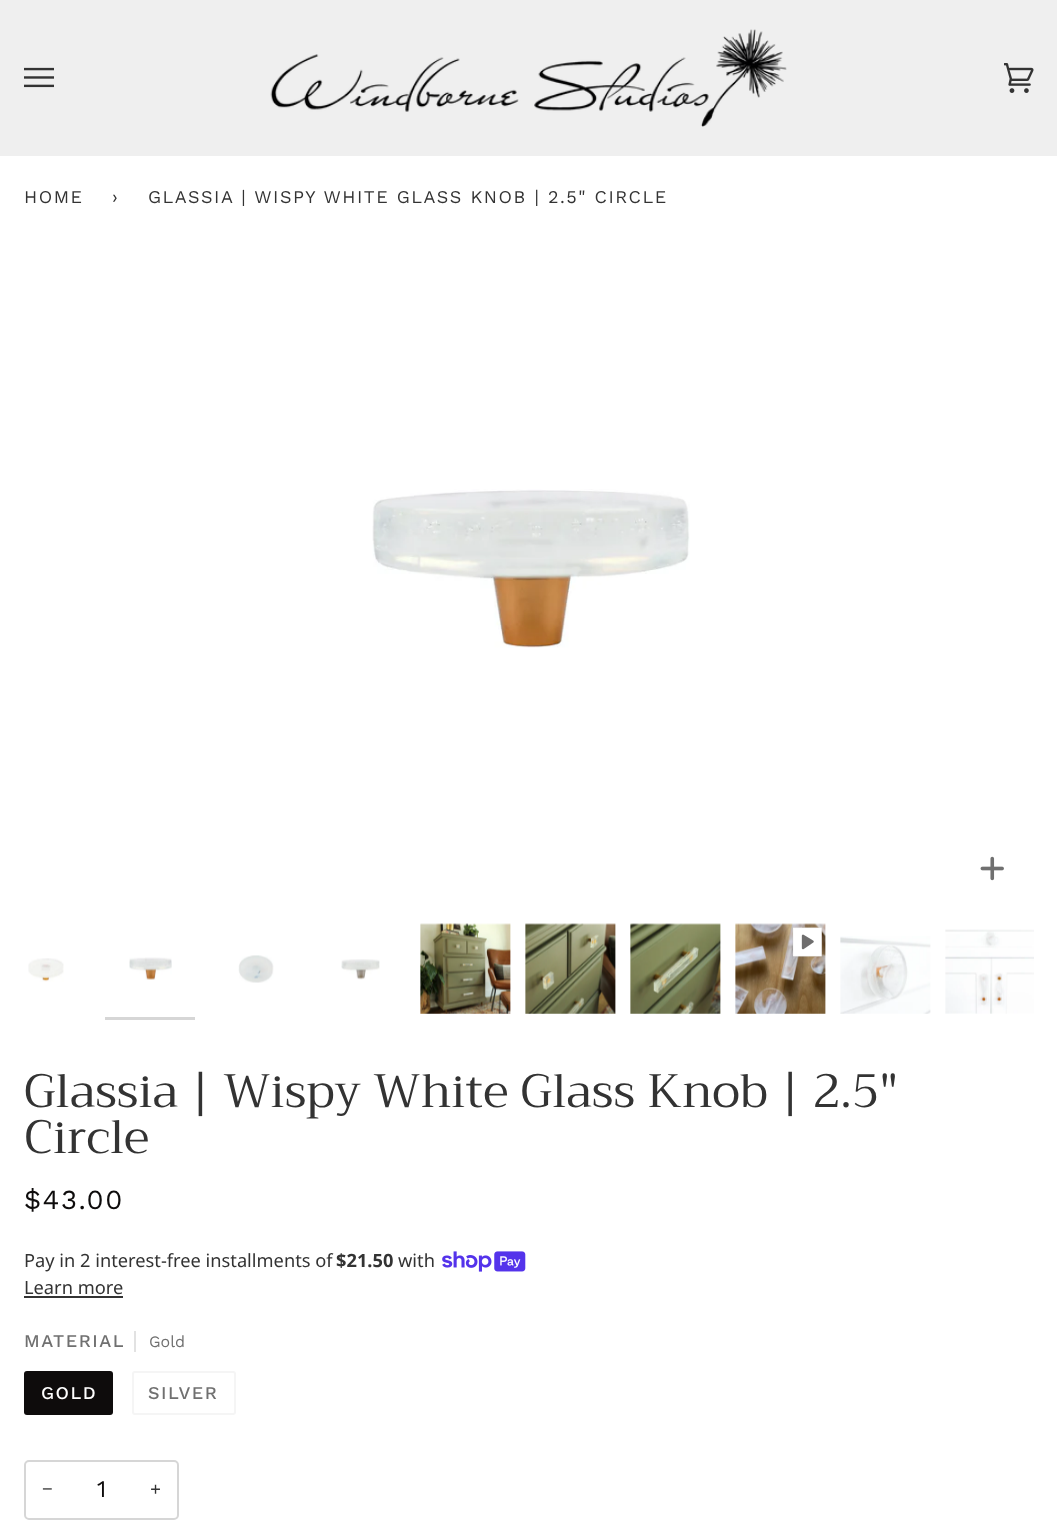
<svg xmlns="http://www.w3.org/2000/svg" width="1057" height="1528">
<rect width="100%" height="100%" fill="#fff"/>
<rect width="1057" height="156" fill="#efefef"/>
<image x="24" y="67" width="30" height="21" href="media/1.png"/>
<image x="270" y="29" width="517" height="98" href="media/2.png"/>
<image x="1004" y="63" width="30" height="30" href="media/3.png"/>
<text x="24" y="203" style="font-family:Work Sans;font-size:18px;letter-spacing:1.5px;fill:#333">HOME</text>
<text x="112" y="203" style="font-family:Work Sans;font-size:18px;letter-spacing:1.5px;fill:#333">›</text>
<text x="148" y="203" style="font-family:Work Sans;font-size:18px;letter-spacing:1.5px;fill:#333">GLASSIA | WISPY WHITE GLASS KNOB | 2.5" CIRCLE</text>
<image x="372" y="489" width="318" height="159" href="media/4.png"/>
<image x="980" y="856" width="24" height="25" href="media/5.png"/>
<image x="28" y="958" width="36" height="24" href="media/6.png"/>
<image x="129" y="957" width="43" height="23" href="media/7.png"/>
<rect x="105" y="1017" width="90" height="3" fill="#d6d6d6"/>
<image x="238" y="955" width="36" height="28" href="media/8.png"/>
<image x="341" y="959" width="39" height="21" href="media/9.png"/>
<image x="420" y="923" width="91" height="91" href="media/10.png"/>
<image x="525" y="923" width="91" height="91" href="media/11.png"/>
<image x="630" y="923" width="91" height="91" href="media/12.png"/>
<image x="735" y="923" width="91" height="91" href="media/13.png"/>
<image x="793" y="927" width="29" height="30" href="media/14.png"/>
<image x="840" y="936" width="91" height="78" href="media/15.png"/>
<image x="945" y="929" width="89" height="85" href="media/16.png"/>
<text x="24" y="1107" style="font-family:Trirong;font-size:46.75px;fill:#333">Glassia | Wispy White Glass Knob | 2.5"</text>
<text x="24" y="1153" style="font-family:Trirong;font-size:46.75px;fill:#333">Circle</text>
<text x="24" y="1209" style="font-family:Work Sans;font-size:27.5px;letter-spacing:1.5px;fill:#0e0c0c">$43.00</text>
<text x="24" y="1267" style="font-family:Noto Sans;font-size:18.25px;fill:#333">Pay in 2 interest-free installments of</text>
<text x="336" y="1267" style="font-family:Noto Sans;font-size:18.25px;font-weight:bold;fill:#333">$21.50</text>
<text x="398" y="1267" style="font-family:Noto Sans;font-size:18.25px;fill:#333">with</text>
<image x="442" y="1251" width="84" height="21" href="media/17.png"/>
<text x="24" y="1294" style="font-family:Noto Sans;font-size:18.25px;fill:#333">Learn more</text>
<rect x="24" y="1296" width="99" height="2" fill="#333"/>
<text x="24" y="1347" style="font-family:Work Sans;font-size:18px;font-weight:500;letter-spacing:1.5px;fill:#707070">MATERIAL</text>
<rect x="134" y="1331" width="2" height="21" fill="#e2e2e2"/>
<text x="149" y="1347" style="font-family:Work Sans;font-size:16px;fill:#707070">Gold</text>
<rect x="24" y="1371" width="89" height="44" rx="3" fill="#0e0c0c"/>
<text x="41" y="1399" style="font-family:Work Sans;font-size:18px;font-weight:500;letter-spacing:1.5px;fill:#fff">GOLD</text>
<rect x="133" y="1372" width="102" height="42" rx="2" fill="none" stroke="#f5f5f5" stroke-width="2"/>
<text x="148" y="1399" style="font-family:Work Sans;font-size:18px;font-weight:500;letter-spacing:1.5px;fill:#707070">SILVER</text>
<rect x="25" y="1461" width="153" height="58" rx="4" fill="none" stroke="#d6d6d6" stroke-width="2"/>
<text x="42" y="1495" style="font-family:Liberation Sans;font-size:18.25px;fill:#333">−</text>
<text x="97" y="1497" style="font-family:Work Sans;font-size:24px;fill:#0e0c0c">1</text>
<text x="150" y="1495" style="font-family:Work Sans;font-size:18.25px;fill:#333">+</text>
</svg>
